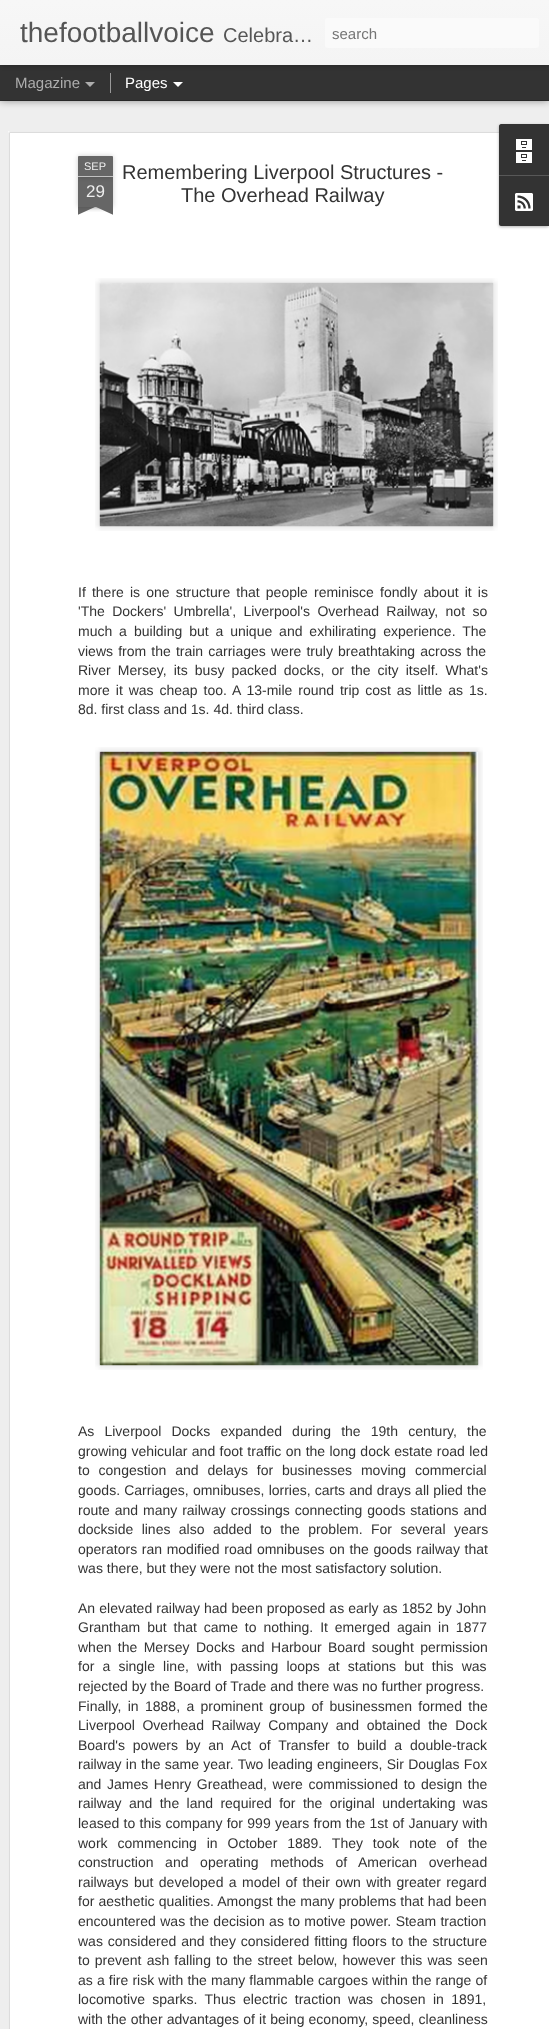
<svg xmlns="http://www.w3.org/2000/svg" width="549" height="2029">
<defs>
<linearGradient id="g1" gradientUnits="userSpaceOnUse" x1="0" y1="0" x2="0" y2="65"><stop offset="0" stop-color="#f7f7f7"/><stop offset="1" stop-color="#f4f4f4"/></linearGradient>
<clipPath id="clip1"><rect x="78" y="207" width="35" height="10"/></clipPath>
<clipPath id="clip2"><rect x="78" y="207" width="35" height="10"/></clipPath>
</defs>
<rect width="100%" height="100%" fill="#333"/>
<rect y="101" width="549" height="1928" fill="#eee"/>
<rect y="65" width="549" height="35" fill="#00000080" filter="blur(4px)"/>
<rect y="65" width="549" height="35" fill="#333"/>
<rect x="110" y="73" width="1" height="20" fill="#999"/>
<rect width="549" height="65" fill="#0000004d" filter="blur(2.5px)"/>
<rect width="549" height="65" fill="url(#g1)"/>
<text x="20" y="42" style="font-family:Liberation Sans;font-size:28px;fill:#555">thefootballvoice</text>
<text x="223" y="42" style="font-family:Liberation Sans;font-size:20px;fill:#555">Celebra…</text>
<rect x="325" y="18" width="214" height="30" rx="3" fill="#fafafa"/>
<text x="332" y="39" style="font-family:Liberation Sans;font-size:15px;fill:#757575">search</text>
<text x="15" y="88" style="font-family:Liberation Sans;font-size:15px;fill:#adadad">Magazine</text>
<path d="M85 82h10l-5 5z" fill="#adadad"/>
<text x="125" y="88" style="font-family:Liberation Sans;font-size:15px;fill:#fff">Pages</text>
<path d="M173 82h10l-5 5z" fill="#fff"/>
<rect x="8" y="131" width="541" height="1898" fill="#fff"/>
<image x="8" y="131" width="491" height="1898" href="media/1.png"/>
<rect x="78" y="177" width="35" height="30" fill="#00000033" filter="blur(2.5px)"/>
<rect x="78" y="177" width="35" height="30" fill="#666"/>
<rect x="78" y="156" width="35" height="21" rx="1" fill="#00000033" filter="blur(2.5px)"/>
<path d="M79 156h33c.5 0 1 .5 1 1v20h-35v-20c0-.5 .5-1 1-1z" fill="#666"/>
<rect x="78" y="176" width="35" height="1" fill="#c2c2c2"/>
<text x="84" y="170" style="font-family:Liberation Sans;font-size:11px;fill:#eee">SEP</text>
<text x="86" y="197" style="font-family:Liberation Sans;font-size:17px;fill:#eee">29</text>
<g clip-path="url(#clip1)">
<rect x="69" y="197" width="50" height="10" fill="#00000033" filter="blur(2.5px)"/>
</g>
<g clip-path="url(#clip2)">
<path d="M69 208l46-21l4 9l-46 21z" fill="#666"/>
</g>
<g clip-path="url(#clip1)">
<rect x="72" y="197" width="50" height="10" fill="#00000033" filter="blur(2.5px)"/>
</g>
<g clip-path="url(#clip2)">
<path d="M76 187l46 21l-4 9l-46-21z" fill="#666"/>
</g>
<text x="122" y="179" style="font-family:Liberation Sans;font-size:20px;fill:#333">Remembering Liverpool Structures -</text>
<text x="181" y="202" style="font-family:Liberation Sans;font-size:20px;fill:#333">The Overhead Railway</text>
<image x="95" y="278" width="403" height="253" href="media/2.png"/>
<image x="99" y="282" width="395" height="245" href="media/3.png"/>
<text x="78" y="597" word-spacing="2.25" style="font-family:Liberation Sans;font-size:14px;fill:#333">If there is one structure that people reminisce fondly about it is</text>
<text x="78" y="616" word-spacing="3.5" style="font-family:Liberation Sans;font-size:14px;fill:#333">'The Dockers' Umbrella', Liverpool's Overhead Railway, not so</text>
<text x="78" y="636" word-spacing="3" style="font-family:Liberation Sans;font-size:14px;fill:#333">much a</text>
<text x="134" y="636" word-spacing="3" style="font-family:Liberation Sans;font-size:14px;fill:#333">building but a unique and exhilirating experience. The</text>
<text x="78" y="656" word-spacing="1.25" style="font-family:Liberation Sans;font-size:14px;fill:#333">views from the train carriages were truly breathtaking across the</text>
<text x="78" y="675" word-spacing="3.25" style="font-family:Liberation Sans;font-size:14px;fill:#333">River Mersey, its busy packed docks, or the city itself. What's</text>
<text x="78" y="695" word-spacing="2" style="font-family:Liberation Sans;font-size:14px;fill:#333">more it was cheap too. A 13-mile round trip cost as little as 1s.</text>
<text x="78" y="714" style="font-family:Liberation Sans;font-size:14px;fill:#333">8d. first class and 1s. 4d. third class.</text>
<image x="95" y="747" width="388" height="623" href="media/4.png"/>
<image x="99" y="751" width="380" height="615" href="media/5.png"/>
<text x="78" y="1436" word-spacing="6.25" style="font-family:Liberation Sans;font-size:14px;fill:#333">As Liverpool Docks expanded during the 19th century, the</text>
<text x="78" y="1456" word-spacing="0.5" style="font-family:Liberation Sans;font-size:14px;fill:#333">growing vehicular and foot traffic on the long dock estate road led</text>
<text x="78" y="1475" word-spacing="5" style="font-family:Liberation Sans;font-size:14px;fill:#333">to congestion and delays for businesses moving commercial</text>
<text x="78" y="1495" word-spacing="0.25" style="font-family:Liberation Sans;font-size:14px;fill:#333">goods. Carriages, omnibuses, lorries, carts and drays all plied the</text>
<text x="78" y="1515" word-spacing="1" style="font-family:Liberation Sans;font-size:14px;fill:#333">route and many railway crossings connecting goods stations and</text>
<text x="78" y="1534" word-spacing="4.5" style="font-family:Liberation Sans;font-size:14px;fill:#333">dockside lines also added to the problem. For several years</text>
<text x="78" y="1554" word-spacing="0.75" style="font-family:Liberation Sans;font-size:14px;fill:#333">operators ran modified road omnibuses on the goods railway that</text>
<text x="78" y="1573" style="font-family:Liberation Sans;font-size:14px;fill:#333">was there, but they were not the most satisfactory solution.</text>
<text x="78" y="1613" word-spacing="0.25" style="font-family:Liberation Sans;font-size:14px;fill:#333">An elevated railway had been proposed as early as 1852 by John</text>
<text x="78" y="1632" word-spacing="3" style="font-family:Liberation Sans;font-size:14px;fill:#333">Grantham but that came to nothing. It emerged again in 1877</text>
<text x="78" y="1652" word-spacing="2.5" style="font-family:Liberation Sans;font-size:14px;fill:#333">when the Mersey Docks and Harbour Board sought permission</text>
<text x="78" y="1671" word-spacing="4.25" style="font-family:Liberation Sans;font-size:14px;fill:#333">for a single line, with passing loops at stations but this was</text>
<text x="78" y="1691" style="font-family:Liberation Sans;font-size:14px;fill:#333">rejected by the Board of Trade and there was no further progress.</text>
<text x="78" y="1711" word-spacing="2.5" style="font-family:Liberation Sans;font-size:14px;fill:#333">Finally, in 1888, a prominent group of businessmen formed the</text>
<text x="78" y="1730" word-spacing="3.75" style="font-family:Liberation Sans;font-size:14px;fill:#333">Liverpool Overhead Railway Company and obtained the Dock</text>
<text x="78" y="1750" word-spacing="3.9" style="font-family:Liberation Sans;font-size:14px;fill:#333">Board's powers by an Act of Transfer to build a double-track</text>
<text x="78" y="1769" word-spacing="0.4" style="font-family:Liberation Sans;font-size:14px;fill:#333">railway in the same year. Two leading engineers, Sir Douglas Fox</text>
<text x="78" y="1789" word-spacing="1.75" style="font-family:Liberation Sans;font-size:14px;fill:#333">and James Henry Greathead, were commissioned to design the</text>
<text x="78" y="1808" word-spacing="3.5" style="font-family:Liberation Sans;font-size:14px;fill:#333">railway and the land required for the original undertaking was</text>
<text x="78" y="1828" word-spacing="0.4" style="font-family:Liberation Sans;font-size:14px;fill:#333">leased to this company for 999 years from the 1st of January with</text>
<text x="78" y="1848" word-spacing="6" style="font-family:Liberation Sans;font-size:14px;fill:#333">work commencing in October 1889. They took note of the</text>
<text x="78" y="1867" word-spacing="7.75" style="font-family:Liberation Sans;font-size:14px;fill:#333">construction and operating methods of American overhead</text>
<text x="78" y="1887" word-spacing="1.5" style="font-family:Liberation Sans;font-size:14px;fill:#333">railways but developed a model of their own with greater regard</text>
<text x="78" y="1906" word-spacing="0.25" style="font-family:Liberation Sans;font-size:14px;fill:#333">for aesthetic qualities. Amongst the many problems that had been</text>
<text x="78" y="1926" word-spacing="0.5" style="font-family:Liberation Sans;font-size:14px;fill:#333">encountered was the decision as to motive power. Steam traction</text>
<text x="78" y="1946" word-spacing="1" style="font-family:Liberation Sans;font-size:14px;fill:#333">was considered and they considered fitting floors to the structure</text>
<text x="78" y="1965" word-spacing="1.25" style="font-family:Liberation Sans;font-size:14px;fill:#333">to prevent ash falling to the street below, however this was seen</text>
<text x="78" y="1985" word-spacing="0.25" style="font-family:Liberation Sans;font-size:14px;fill:#333">as a fire risk with the many flammable cargoes within the range of</text>
<text x="78" y="2004" word-spacing="3.5" style="font-family:Liberation Sans;font-size:14px;fill:#333">locomotive sparks. Thus electric traction was chosen in 1891,</text>
<text x="78" y="2024" word-spacing="0.25" style="font-family:Liberation Sans;font-size:14px;fill:#333">with the other advantages of it being economy, speed, cleanliness</text>
<rect x="499" y="125" width="50" height="102" rx="2" fill="#0000004d" filter="blur(1.5px)"/>
<path d="M501 124h48v51h-50v-49c0-1 1-2 2-2z" fill="#333"/>
<image x="516" y="139" width="16" height="24" href="media/6.png"/>
<path d="M499 175h50v51h-48c-1 0-2-1-2-2z" fill="#333"/>
<rect x="499" y="175" width="50" height="1" fill="#585858"/>
<image x="515" y="193" width="18" height="18" href="media/7.png"/>
</svg>
